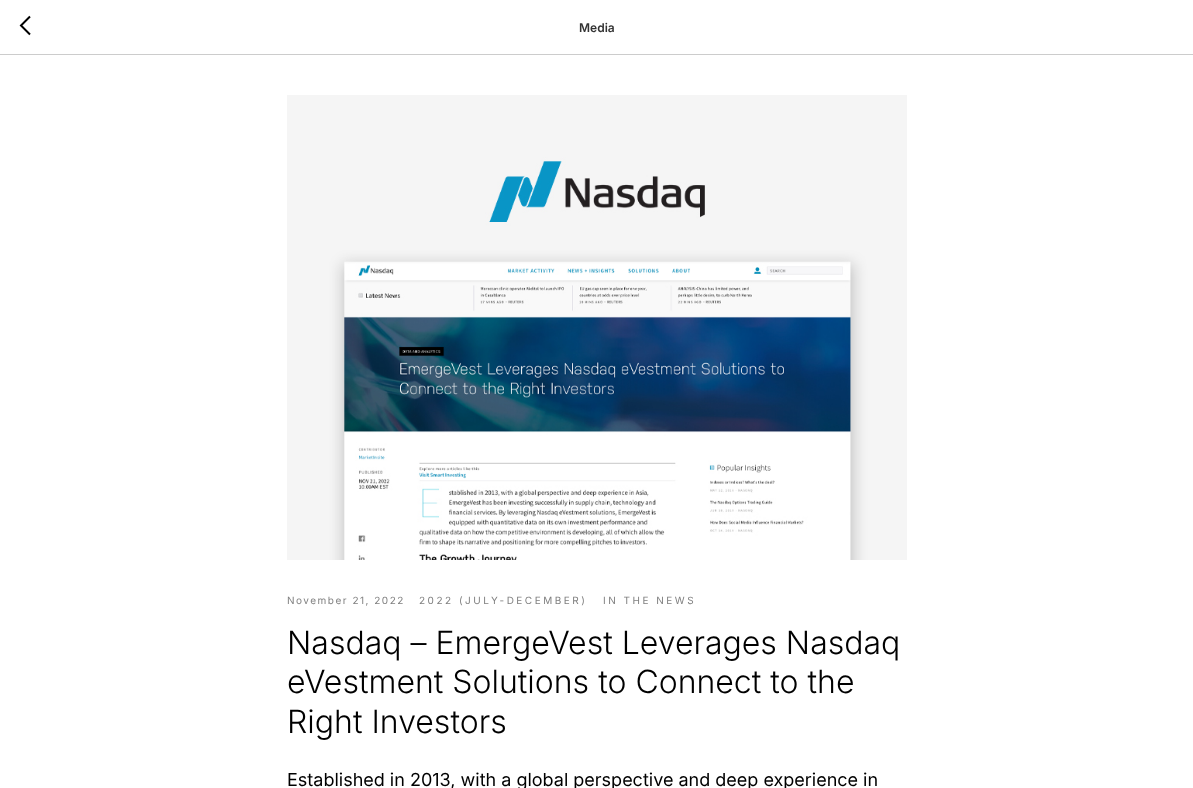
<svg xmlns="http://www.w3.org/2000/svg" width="1193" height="788">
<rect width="100%" height="100%" fill="#fff"/>
<rect y="54" width="1193" height="1" fill="#ccc"/>
<path d="M30 34.5l-9-9l9-9" fill="none" stroke="#000" stroke-width="2"/>
<text x="579" y="32" style="font-family:Inter;font-size:12px;font-weight:600;fill:#333">Media</text>
<image x="287" y="95" width="620" height="465" href="media/1.png"/>
<text x="287" y="604" style="font-family:Inter;font-size:10px;letter-spacing:1.5px;fill:#808080">November 21, 2022</text>
<text x="419" y="604" style="font-family:Inter;font-size:10px;letter-spacing:2.5px;fill:#808080">2022 (JULY-DECEMBER)</text>
<text x="603" y="604" style="font-family:Inter;font-size:10px;letter-spacing:2.5px;fill:#808080">IN THE NEWS</text>
<text x="287" y="654" style="font-family:Inter;font-size:32px;font-weight:300;fill:#000">Nasdaq – EmergeVest Leverages Nasdaq</text>
<text x="287" y="693" style="font-family:Inter;font-size:32px;font-weight:300;fill:#000">eVestment Solutions to Connect to the</text>
<text x="287" y="733" style="font-family:Inter;font-size:32px;font-weight:300;fill:#000">Right Investors</text>
<text x="287" y="786" style="font-family:Inter;font-size:18px;fill:#000">Established in 2013, with a global perspective and deep experience in</text>
</svg>
